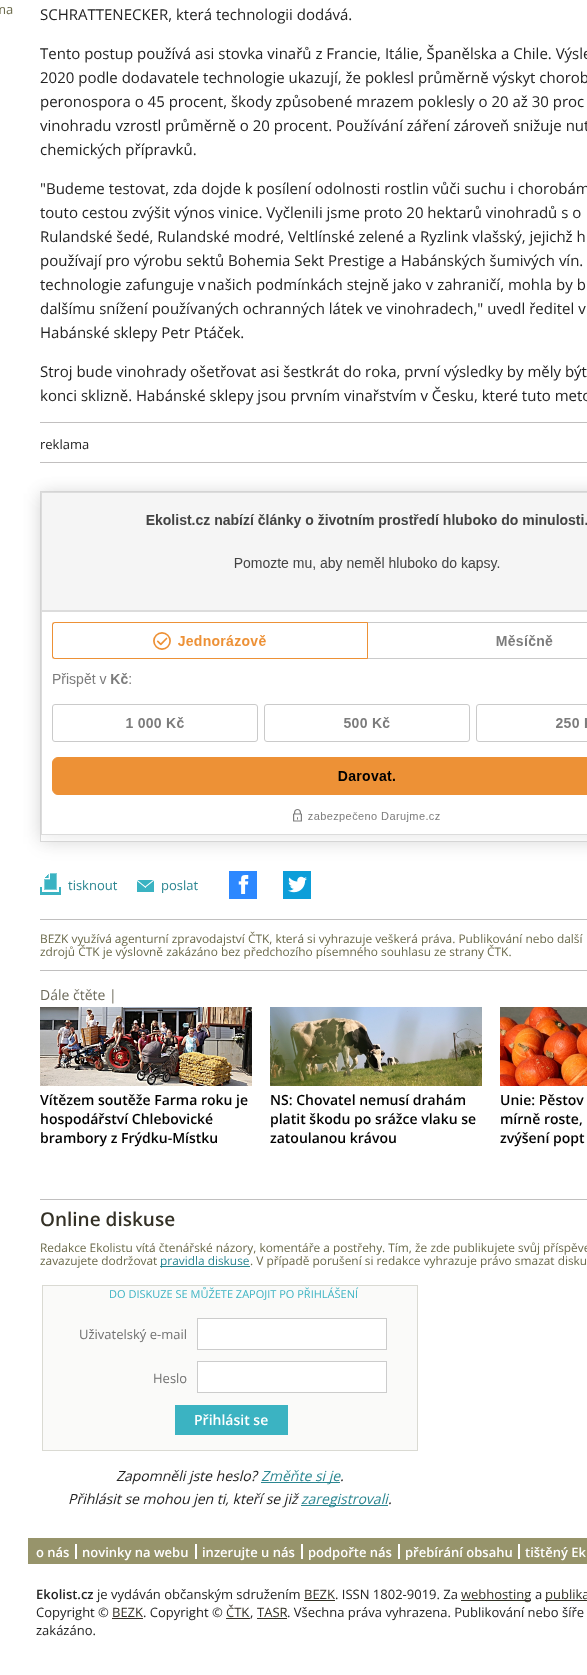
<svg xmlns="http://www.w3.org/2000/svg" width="587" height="1675">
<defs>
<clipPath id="clip1"><path d="M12 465h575v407h-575zm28 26h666v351h-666z" clip-rule="evenodd"/></clipPath>
<clipPath id="clip2"><path d="M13 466h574v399h-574zm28 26h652v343h-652z" clip-rule="evenodd"/></clipPath>
</defs>
<rect width="100%" height="100%" fill="#fff"/>
<text x="-6" y="14" style="font-family:Open Sans;font-size:13px;fill:#6b6a4b">ma</text>
<text x="40" y="20" style="font-family:Open Sans;font-size:15px;fill:#222">SCHRATTENECKER, která technologii dodává.</text>
<text x="40" y="59" style="font-family:Open Sans;font-size:15px;fill:#222">Tento postup používá asi stovka vinařů z Francie, Itálie, Španělska a Chile. Výsle</text>
<text x="40" y="83" style="font-family:Open Sans;font-size:15px;fill:#222">2020 podle dodavatele technologie ukazují, že poklesl průměrně výskyt chorob</text>
<text x="40" y="107" style="font-family:Open Sans;font-size:15px;fill:#222">peronospora o 45 procent, škody způsobené mrazem poklesly o 20 až 30 proc</text>
<text x="40" y="131" style="font-family:Open Sans;font-size:15px;fill:#222">vinohradu vzrostl průměrně o 20 procent. Používání záření zároveň snižuje nut</text>
<text x="40" y="155" style="font-family:Open Sans;font-size:15px;fill:#222">chemických přípravků.</text>
<text x="40" y="194" style="font-family:Open Sans;font-size:15px;fill:#222">"Budeme testovat, zda dojde k posílení odolnosti rostlin vůči suchu i chorobám</text>
<text x="40" y="218" style="font-family:Open Sans;font-size:15px;fill:#222">touto cestou zvýšit výnos vinice. Vyčlenili jsme proto 20 hektarů vinohradů s o</text>
<text x="40" y="242" style="font-family:Open Sans;font-size:15px;fill:#222">Rulandské šedé, Rulandské modré, Veltlínské zelené a Ryzlink vlašský, jejichž h</text>
<text x="40" y="266" style="font-family:Open Sans;font-size:15px;fill:#222">používají pro výrobu sektů Bohemia Sekt Prestige a Habánských šumivých vín.</text>
<text x="40" y="290" style="font-family:Open Sans;font-size:15px;fill:#222">technologie zafunguje v našich podmínkách stejně jako v zahraničí, mohla by b</text>
<text x="40" y="314" style="font-family:Open Sans;font-size:15px;fill:#222">dalšímu snížení používaných ochranných látek ve vinohradech," uvedl ředitel v</text>
<text x="40" y="338" style="font-family:Open Sans;font-size:15px;fill:#222">Habánské sklepy Petr Ptáček.</text>
<text x="40" y="377" style="font-family:Open Sans;font-size:15px;fill:#222">Stroj bude vinohrady ošetřovat asi šestkrát do roka, první výsledky by měly být</text>
<text x="40" y="401" style="font-family:Open Sans;font-size:15px;fill:#222">konci sklizně. Habánské sklepy jsou prvním vinařstvím v Česku, které tuto meto</text>
<rect x="40" y="422" width="547" height="1" fill="#c1bfbf"/>
<text x="40" y="449" style="font-family:Open Sans;font-size:13px;fill:#222">reklama</text>
<rect x="40" y="462" width="547" height="1" fill="#c1bfbf"/>
<g clip-path="url(#clip1)">
<rect x="40" y="493" width="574" height="351" fill="#00000017" filter="blur(9px)"/>
</g>
<rect x="40.5" y="491.5" width="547" height="350" fill="none" stroke="#dcdcdc"/>
<g clip-path="url(#clip2)">
<rect x="41" y="494" width="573" height="343" fill="#00000017" filter="blur(9px)"/>
</g>
<rect x="41.5" y="492.5" width="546" height="342" fill="none" stroke="#dcdcdc"/>
<image x="42" y="493" width="545" height="329" href="media/1.png"/>
<image x="40" y="873" width="21" height="22" href="media/2.png"/>
<text x="68" y="890" style="font-family:Open Sans;font-size:13px;fill:#2b8691">tisknout</text>
<image x="137" y="880" width="17" height="12" href="media/3.png"/>
<text x="161" y="890" style="font-family:Open Sans;font-size:13px;fill:#2b8691">poslat</text>
<rect x="229" y="871" width="28" height="28" fill="#2d88ff"/>
<image x="238" y="875" width="11" height="19" href="media/4.png"/>
<rect x="283" y="871" width="28" height="28" fill="#0d9ed9"/>
<image x="288" y="876" width="19" height="17" href="media/5.png"/>
<rect x="40" y="919" width="547" height="1" fill="#c0bfbf"/>
<text x="40" y="943" style="font-family:Open Sans;font-size:11.9px;fill:#6b6a4b">BEZK využívá agenturní zpravodajství ČTK, která si vyhrazuje veškerá práva. Publikování nebo další</text>
<text x="40" y="956" style="font-family:Open Sans;font-size:11.9px;fill:#6b6a4b">zdrojů ČTK je výslovně zakázáno bez předchozího písemného souhlasu ze strany ČTK.</text>
<rect x="40" y="970" width="547" height="1" fill="#c0bfbf"/>
<text x="40" y="1000" style="font-family:Open Sans;font-size:14px;fill:#6d6a5b">Dále čtěte |</text>
<image x="40" y="1007" width="212" height="79" href="media/6.png"/>
<text x="40" y="1105" style="font-family:Open Sans;font-size:14px;font-weight:600;fill:#000">Vítězem soutěže Farma roku je</text>
<text x="40" y="1124" style="font-family:Open Sans;font-size:14px;font-weight:600;fill:#000">hospodářství Chlebovické</text>
<text x="40" y="1143" style="font-family:Open Sans;font-size:14px;font-weight:600;fill:#000">brambory z Frýdku-Místku</text>
<image x="270" y="1007" width="212" height="79" href="media/7.png"/>
<text x="270" y="1105" style="font-family:Open Sans;font-size:14px;font-weight:600;fill:#000">NS: Chovatel nemusí drahám</text>
<text x="270" y="1124" style="font-family:Open Sans;font-size:14px;font-weight:600;fill:#000">platit škodu po srážce vlaku se</text>
<text x="270" y="1143" style="font-family:Open Sans;font-size:14px;font-weight:600;fill:#000">zatoulanou krávou</text>
<image x="500" y="1007" width="87" height="79" href="media/8.png"/>
<text x="500" y="1105" style="font-family:Open Sans;font-size:14px;font-weight:600;fill:#000">Unie: Pěstov</text>
<text x="500" y="1124" style="font-family:Open Sans;font-size:14px;font-weight:600;fill:#000">mírně roste,</text>
<text x="500" y="1143" style="font-family:Open Sans;font-size:14px;font-weight:600;fill:#000">zvýšení popt</text>
<rect x="40" y="1199" width="547" height="1" fill="#c0bfbf"/>
<text x="40" y="1226" style="font-family:Open Sans;font-size:19px;font-weight:600;fill:#343126">Online diskuse</text>
<text x="40" y="1252" style="font-family:Open Sans;font-size:11.9px;fill:#6b6a4b">Redakce Ekolistu vítá čtenářské názory, komentáře a postřehy. Tím, že zde publikujete svůj příspěve</text>
<text x="40" y="1265" style="font-family:Open Sans;font-size:11.9px;fill:#6b6a4b">zavazujete dodržovat</text>
<rect x="160" y="1266" width="90" height="1" fill="#2b8691"/>
<text x="160" y="1265" style="font-family:Open Sans;font-size:11.9px;fill:#2b8691">pravidla diskuse</text>
<text x="250" y="1265" style="font-family:Open Sans;font-size:11.9px;fill:#6b6a4b">. V případě porušení si redakce vyhrazuje právo smazat disku</text>
<rect x="42.5" y="1285.5" width="375" height="165" fill="#fafaf9" stroke="#dadad3"/>
<text x="109" y="1298" style="font-family:Open Sans;font-size:11px;fill:#3bb3c2">DO DISKUZE SE MŮŽETE ZAPOJIT PO PŘIHLÁŠENÍ</text>
<text x="79" y="1339" style="font-family:Open Sans;font-size:13px;fill:#707070">Uživatelský e-mail</text>
<rect x="197.5" y="1318.5" width="189" height="31" fill="#fff" stroke="#ccc"/>
<text x="153" y="1383" style="font-family:Open Sans;font-size:13px;fill:#707070">Heslo</text>
<rect x="197.5" y="1361.5" width="189" height="31" fill="#fff" stroke="#ccc"/>
<rect x="175" y="1405" width="113" height="30" fill="#3bb3c2"/>
<text x="194" y="1425" style="font-family:Open Sans;font-size:14px;font-weight:600;fill:#fff">Přihlásit se</text>
<text x="116" y="1481" style="font-family:Open Sans;font-size:14px;font-style:italic;fill:#222">Zapomněli jste heslo?</text>
<rect x="261" y="1482" width="79" height="1" fill="#2b8691"/>
<text x="261" y="1481" style="font-family:Open Sans;font-size:14px;font-style:italic;fill:#2b8691">Změňte si je</text>
<text x="340" y="1481" style="font-family:Open Sans;font-size:14px;font-style:italic;fill:#222">.</text>
<text x="68" y="1504" style="font-family:Open Sans;font-size:14px;font-style:italic;fill:#222">Přihlásit se mohou jen ti, kteří se již</text>
<rect x="301" y="1505" width="87" height="1" fill="#2b8691"/>
<text x="301" y="1504" style="font-family:Open Sans;font-size:14px;font-style:italic;fill:#2b8691">zaregistrovali</text>
<text x="388" y="1504" style="font-family:Open Sans;font-size:14px;font-style:italic;fill:#222">.</text>
<rect x="28" y="1538" width="559" height="26" fill="#97946b"/>
<text x="36" y="1557" style="font-family:Open Sans;font-size:13px;font-weight:600;fill:#fff">o nás</text>
<rect x="75" y="1544" width="2" height="15" fill="#fff"/>
<text x="82" y="1557" style="font-family:Open Sans;font-size:13px;font-weight:600;fill:#fff">novinky na webu</text>
<rect x="195" y="1544" width="2" height="15" fill="#fff"/>
<text x="202" y="1557" style="font-family:Open Sans;font-size:13px;font-weight:600;fill:#fff">inzerujte u nás</text>
<rect x="301" y="1544" width="2" height="15" fill="#fff"/>
<text x="308" y="1557" style="font-family:Open Sans;font-size:13px;font-weight:600;fill:#fff">podpořte nás</text>
<rect x="398" y="1544" width="2" height="15" fill="#fff"/>
<text x="405" y="1557" style="font-family:Open Sans;font-size:13px;font-weight:600;fill:#fff">přebírání obsahu</text>
<rect x="518" y="1544" width="2" height="15" fill="#fff"/>
<text x="525" y="1557" style="font-family:Open Sans;font-size:13px;font-weight:600;fill:#fff">tištěný Ek</text>
<text x="36" y="1599" style="font-family:Open Sans;font-size:13px;font-weight:600;fill:#222">Ekolist.cz</text>
<text x="97" y="1599" style="font-family:Open Sans;font-size:13px;fill:#222">je vydáván občanským sdružením</text>
<text x="304" y="1599" style="font-family:Open Sans;font-size:13px;fill:#343126">BEZK</text>
<rect x="304" y="1600" width="31" height="1" fill="#343126"/>
<text x="335" y="1599" style="font-family:Open Sans;font-size:13px;fill:#222">. ISSN 1802-9019. Za</text>
<rect x="461" y="1600" width="70" height="1" fill="#343126"/>
<text x="461" y="1599" style="font-family:Open Sans;font-size:13px;fill:#343126">webhosting</text>
<text x="535" y="1599" style="font-family:Open Sans;font-size:13px;fill:#222">a</text>
<rect x="545" y="1600" width="42" height="1" fill="#343126"/>
<text x="545" y="1599" style="font-family:Open Sans;font-size:13px;fill:#343126">publika</text>
<text x="36" y="1617" style="font-family:Open Sans;font-size:13px;fill:#222">Copyright ©</text>
<text x="112" y="1617" style="font-family:Open Sans;font-size:13px;fill:#343126">BEZK</text>
<rect x="112" y="1618" width="31" height="1" fill="#343126"/>
<text x="143" y="1617" style="font-family:Open Sans;font-size:13px;fill:#222">. Copyright ©</text>
<text x="226" y="1617" style="font-family:Open Sans;font-size:13px;fill:#343126">ČTK</text>
<rect x="226" y="1618" width="24" height="1" fill="#343126"/>
<text x="250" y="1617" style="font-family:Open Sans;font-size:13px;fill:#222">,</text>
<text x="257" y="1617" style="font-family:Open Sans;font-size:13px;fill:#343126">TASR</text>
<rect x="257" y="1618" width="30" height="1" fill="#343126"/>
<text x="287" y="1617" style="font-family:Open Sans;font-size:13px;fill:#222">. Všechna práva vyhrazena. Publikování nebo šíře</text>
<text x="36" y="1635" style="font-family:Open Sans;font-size:13px;fill:#222">zakázáno.</text>
</svg>
